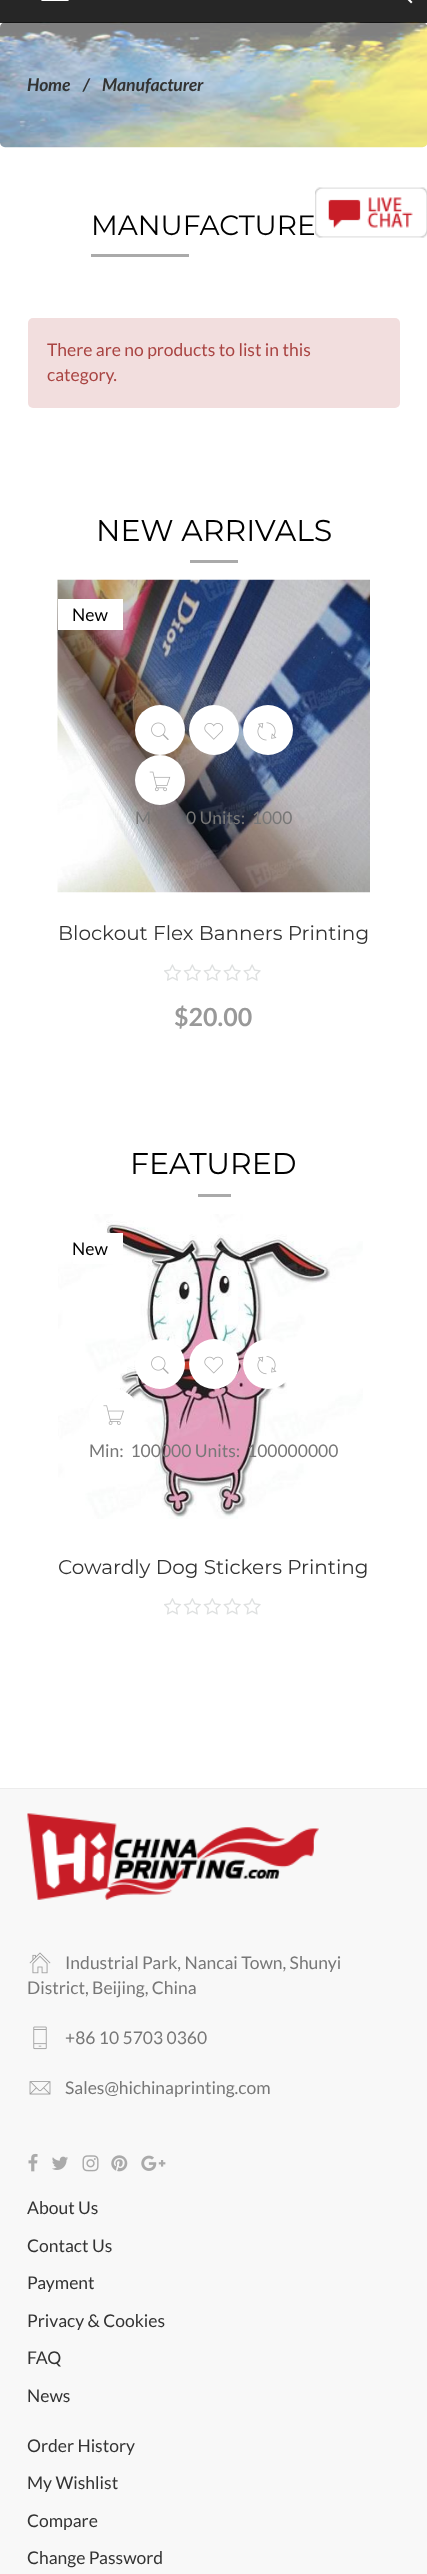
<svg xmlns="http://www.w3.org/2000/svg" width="427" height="2574">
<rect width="100%" height="100%" fill="#fff"/>
<rect width="427" height="23" fill="#262626"/>
<rect x="41" y="-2" width="28" height="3" rx="1.5" fill="#fff"/>
<image x="407" y="0" width="6" height="4" href="media/1.png"/>
<image x="0" y="22" width="427" height="126" href="media/2.png"/>
<text x="27" y="91" style="font-family:Lato;font-size:17.5px;font-weight:bold;font-style:italic;fill:#333">Home</text>
<text x="83" y="91" style="font-family:Lato;font-size:17.5px;font-weight:bold;font-style:italic;fill:#333">/</text>
<text x="102" y="91" style="font-family:Lato;font-size:17.5px;font-weight:bold;font-style:italic;fill:#333">Manufacturer</text>
<text x="91" y="235" style="font-family:Montserrat;font-size:28px;fill:#000">MANUFACTURE</text>
<rect x="91" y="254" width="98" height="3" fill="#aaa"/>
<rect x="28" y="318" width="372" height="90" rx="5" fill="#f2dede"/>
<text x="47" y="356" style="font-family:Lato;font-size:17.5px;fill:#a94442">There are no products to list in this</text>
<text x="47" y="381" style="font-family:Lato;font-size:17.5px;fill:#a94442">category.</text>
<text x="96" y="541" style="font-family:Montserrat;font-size:30px;fill:#000">NEW ARRIVALS</text>
<rect x="190" y="560" width="48" height="3" fill="#aaa"/>
<image x="57" y="579" width="313" height="314" href="media/3.png"/>
<rect x="58" y="599" width="65" height="31" fill="#fff"/>
<text x="72" y="621" style="font-family:Lato;font-size:17.5px;fill:#000">New</text>
<circle cx="160" cy="730" r="25" fill="#fff"/>
<image x="151" y="722" width="18" height="18" href="media/4.png"/>
<circle cx="214" cy="730" r="25" fill="#fff"/>
<image x="204" y="723" width="20" height="17" href="media/5.png"/>
<circle cx="268" cy="730" r="25" fill="#fff"/>
<image x="257" y="722" width="20" height="19" href="media/6.png"/>
<circle cx="160" cy="780" r="25" fill="#fff"/>
<image x="149" y="771" width="22" height="21" href="media/7.png"/>
<text x="135" y="824" style="font-family:Lato;font-size:17.5px;fill:#777">M</text>
<text x="186" y="824" style="font-family:Lato;font-size:17.5px;fill:#777" xml:space="preserve">0 Units:  1000</text>
<text x="58" y="940" style="font-family:Montserrat;font-size:20px;fill:#333">Blockout Flex Banners Printing</text>
<image x="164" y="964" width="97" height="17" href="media/8.png"/>
<text x="174" y="1026" style="font-family:Lato;font-size:25px;font-weight:bold;fill:#999">$20.00</text>
<text x="130" y="1174" style="font-family:Montserrat;font-size:30px;fill:#000">FEATURED</text>
<rect x="198" y="1194" width="33" height="3" fill="#aaa"/>
<image x="58" y="1214" width="305" height="305" href="media/9.png"/>
<rect x="73" y="1233" width="50" height="31" fill="#fff"/>
<text x="72" y="1255" style="font-family:Lato;font-size:17.5px;fill:#000">New</text>
<circle cx="160" cy="1364" r="25" fill="#fff"/>
<image x="151" y="1356" width="18" height="18" href="media/10.png"/>
<circle cx="214" cy="1364" r="25" fill="#fff"/>
<image x="204" y="1356" width="20" height="18" href="media/11.png"/>
<circle cx="268" cy="1364" r="25" fill="#fff"/>
<image x="257" y="1356" width="20" height="19" href="media/12.png"/>
<circle cx="114" cy="1414" r="25" fill="#fff"/>
<image x="103" y="1405" width="21" height="20" href="media/13.png"/>
<text x="89" y="1457" style="font-family:Lato;font-size:17.5px;fill:#777" xml:space="preserve">Min:  100000 Units:  100000000</text>
<text x="58" y="1574" style="font-family:Montserrat;font-size:20px;fill:#333">Cowardly Dog Stickers Printing</text>
<image x="164" y="1598" width="97" height="17" href="media/14.png"/>
<rect y="1789" width="427" height="785" fill="#f8f8f8"/>
<rect y="1788" width="427" height="1" fill="#ececec"/>
<image x="27" y="1813" width="292" height="87" href="media/15.png"/>
<image x="29" y="1952" width="22" height="22" href="media/16.png"/>
<text x="65" y="1969" style="font-family:Lato;font-size:17.5px;fill:#777">Industrial Park, Nancai Town, Shunyi</text>
<text x="27" y="1994" style="font-family:Lato;font-size:17.5px;fill:#777">District, Beijing, China</text>
<image x="33" y="2026" width="14" height="24" href="media/17.png"/>
<text x="65" y="2044" style="font-family:Lato;font-size:17.5px;fill:#777">+86 10 5703 0360</text>
<image x="29" y="2081" width="22" height="14" href="media/18.png"/>
<text x="65" y="2094" style="font-family:Lato;font-size:17.5px;fill:#777">Sales@hichinaprinting.com</text>
<image x="28" y="2153" width="10" height="19" href="media/19.png"/>
<image x="52" y="2156" width="16" height="14" href="media/20.png"/>
<image x="82" y="2155" width="17" height="17" href="media/21.png"/>
<image x="111" y="2155" width="17" height="17" href="media/22.png"/>
<image x="141" y="2155" width="25" height="16" href="media/23.png"/>
<text x="27" y="2214" style="font-family:Lato;font-size:17.5px;fill:#333">About Us</text>
<text x="27" y="2252" style="font-family:Lato;font-size:17.5px;fill:#333">Contact Us</text>
<text x="27" y="2289" style="font-family:Lato;font-size:17.5px;fill:#333">Payment</text>
<text x="27" y="2327" style="font-family:Lato;font-size:17.5px;fill:#333">Privacy &amp; Cookies</text>
<text x="27" y="2364" style="font-family:Lato;font-size:17.5px;fill:#333">FAQ</text>
<text x="27" y="2402" style="font-family:Lato;font-size:17.5px;fill:#333">News</text>
<text x="27" y="2452" style="font-family:Lato;font-size:17.5px;fill:#333">Order History</text>
<text x="27" y="2489" style="font-family:Lato;font-size:17.5px;fill:#333">My Wishlist</text>
<text x="27" y="2527" style="font-family:Lato;font-size:17.5px;fill:#333">Compare</text>
<text x="27" y="2564" style="font-family:Lato;font-size:17.5px;fill:#333">Change Password</text>
<image x="315" y="187" width="112" height="51" href="media/24.png"/>
</svg>
